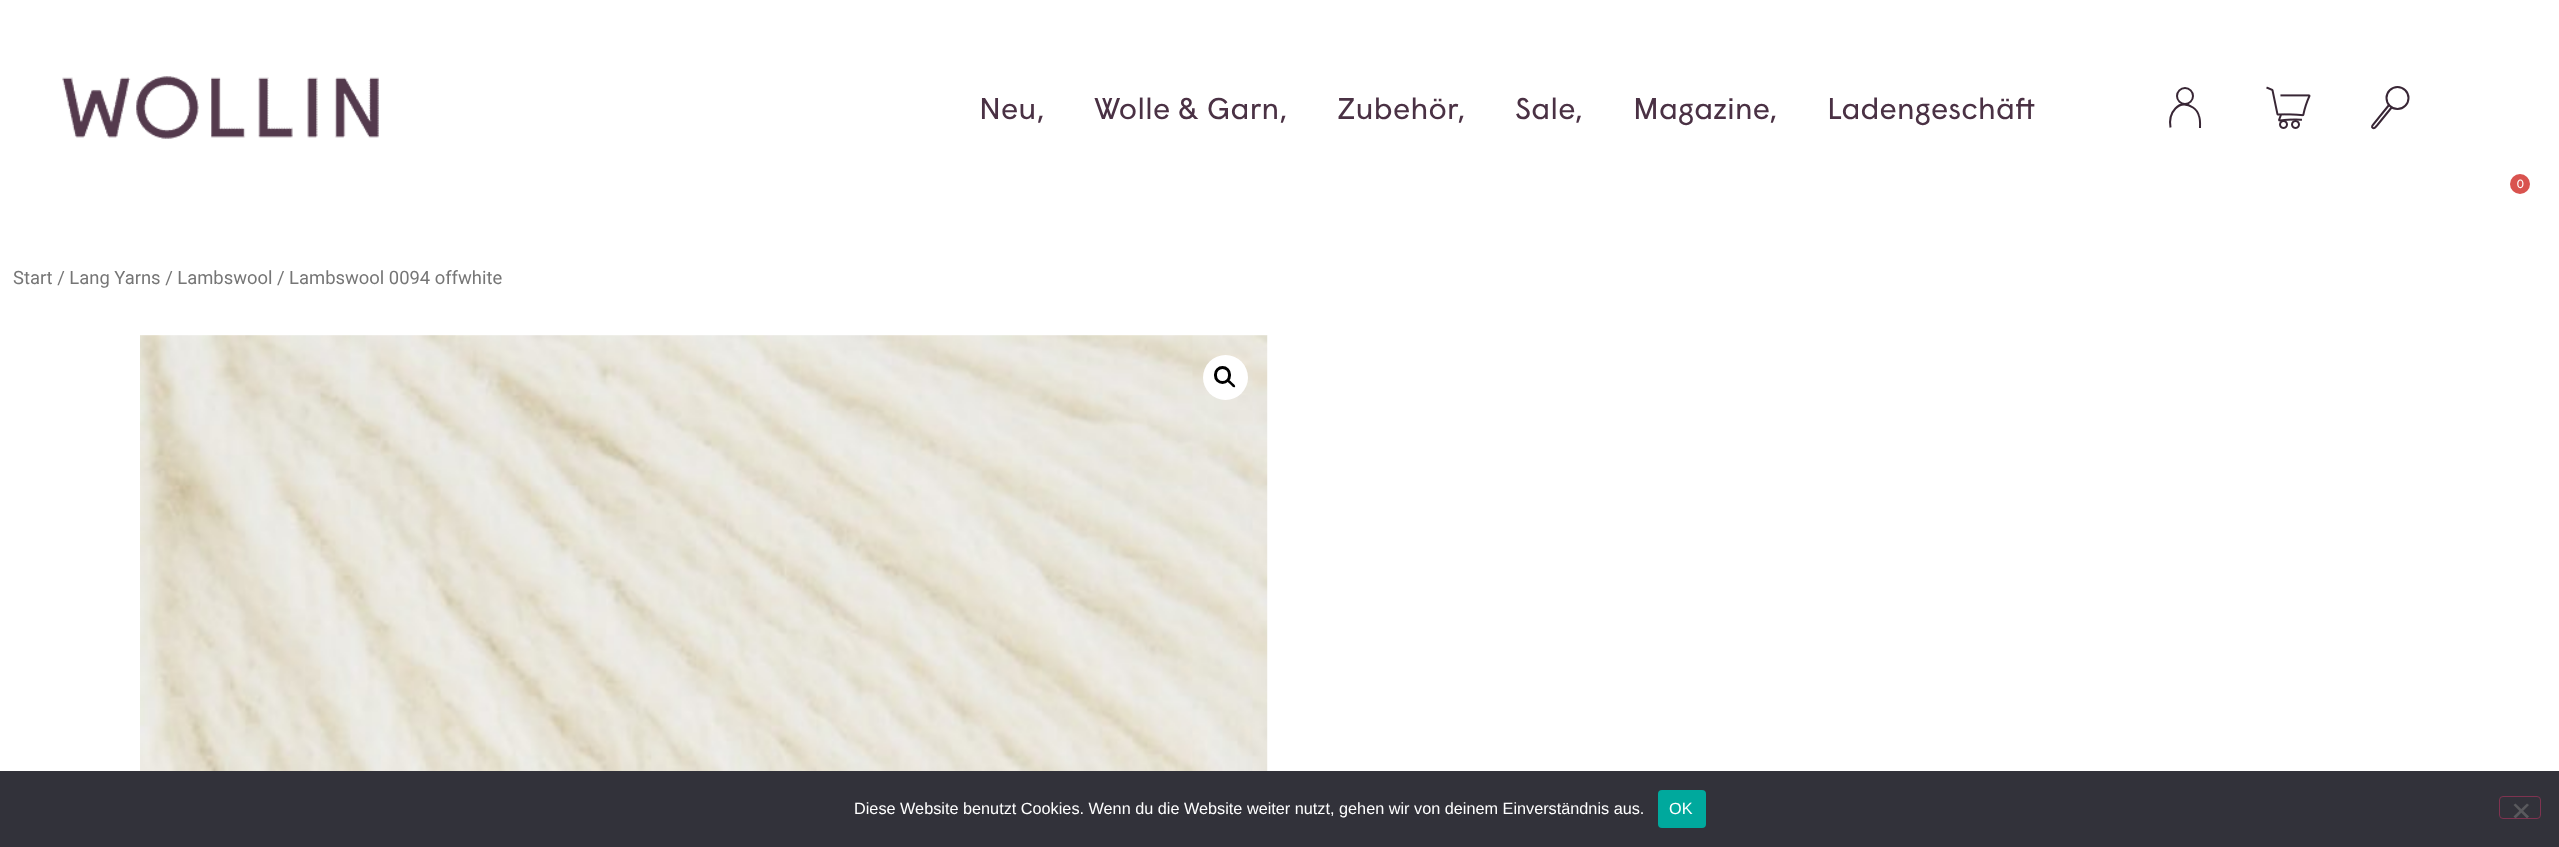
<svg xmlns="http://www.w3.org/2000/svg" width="2559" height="847">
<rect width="100%" height="100%" fill="#fff"/>
<image x="62" y="76" width="317" height="63" href="media/1.png"/>
<text x="979" y="119" style="font-family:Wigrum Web;font-size:30px;fill:#4a3144">Neu,</text>
<text x="1094" y="119" style="font-family:Wigrum Web;font-size:30px;fill:#4a3144">Wolle &amp; Garn,</text>
<text x="1337" y="119" style="font-family:Wigrum Web;font-size:30px;fill:#4a3144">Zubehör,</text>
<text x="1515" y="119" style="font-family:Wigrum Web;font-size:30px;fill:#4a3144">Sale,</text>
<text x="1633" y="119" style="font-family:Wigrum Web;font-size:30px;fill:#4a3144">Magazine,</text>
<text x="1827" y="119" style="font-family:Wigrum Web;font-size:30px;fill:#4a3144">Ladengeschäft</text>
<circle cx="2185" cy="96" r="8" fill="none" stroke="#382635" stroke-width="2"/>
<path d="M2170.5 127.5c-2.5-14.5 8-29.5 22.5-20c3 2 5 5 6 8.5c1.5 4 1 8 1 12" fill="none" stroke="#382635" stroke-width="2"/>
<image x="2266" y="86" width="45" height="43" href="media/2.png"/>
<circle cx="2397.5" cy="98" r="11" fill="none" stroke="#382635" stroke-width="2"/>
<path d="M2389 105l-15 18.5c-.5 1-3.5 3.5-1 4.5c1.5 1 3-1.5 4-2.5l15-18.5" fill="none" stroke="#382635" stroke-width="2"/>
<circle cx="2520" cy="184" r="10" fill="#d9534f"/>
<text x="2517" y="188" style="font-family:Wigrum Web;font-size:12px;fill:#fff">0</text>
<text x="13" y="284" style="font-family:Roboto;font-size:18.4px;fill:#767676">Start / Lang Yarns / Lambswool / Lambswool 0094 offwhite</text>
<image x="140" y="335" width="1128" height="436" href="media/3.png"/>
<image x="1267" y="335" width="1" height="436" href="media/4.png"/>
<circle cx="1225.5" cy="377.5" r="22.5" fill="#fff"/>
<rect x="1215.5" y="367.5" width="14" height="15" rx="7" fill="none" stroke="#000" stroke-width="3"/>
<path d="M1227.5 380c1.5-1.5 4 2 4.5 2.5c1 1 4 3 3 4.5c-1.5 1.5-4-2-4.5-2.5c-1-1-4-3-3-4.5z" fill="#000"/>
<rect y="771" width="2559" height="76" fill="#32323a"/>
<text x="854" y="814" style="font-family:Liberation Sans;font-size:16.25px;fill:#fff">Diese Website benutzt Cookies. Wenn du die Website weiter nutzt, gehen wir von deinem Einverständnis aus.</text>
<rect x="1658" y="790" width="48" height="38" rx="4" fill="#00a99d"/>
<text x="1669" y="814" style="font-family:Liberation Sans;font-size:16.25px;fill:#fff">OK</text>
<rect x="2499.5" y="796.5" width="41" height="22" rx="3.5" fill="none" stroke="#7f3350"/>
<path d="M2527 803.5l2 1.5l-13.5 13.5l-2-2z" fill="#59595d"/>
<path d="M2513.5 805l2-1.5l13.5 13l-2 2z" fill="#59595d"/>
</svg>
